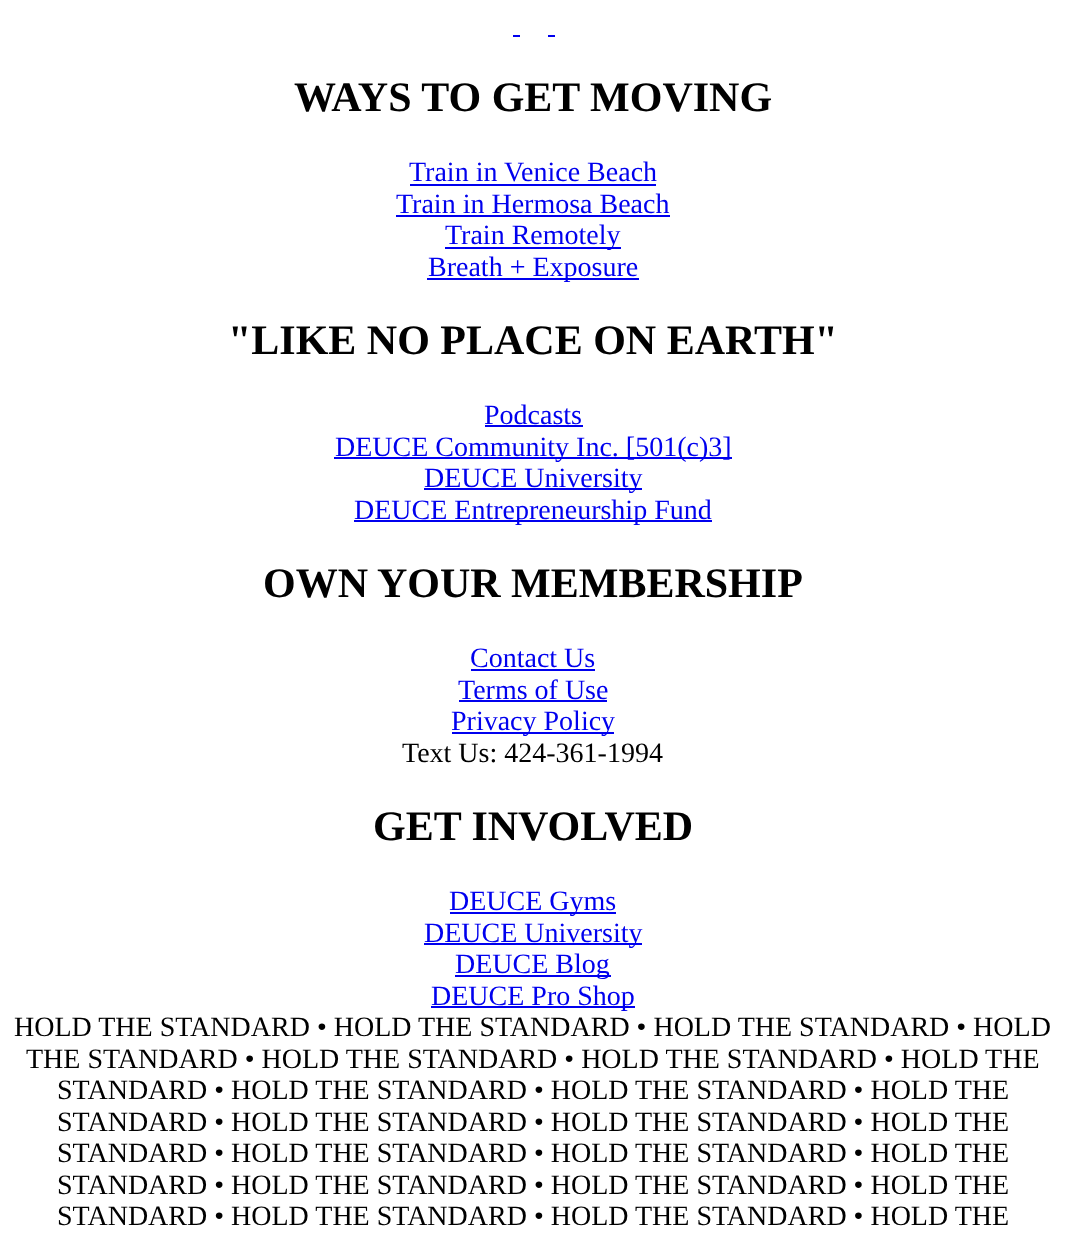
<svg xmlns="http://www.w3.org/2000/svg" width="1065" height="1235">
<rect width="100%" height="100%" fill="#fff"/>
<rect x="513" y="35" width="7" height="2" fill="#00e"/>
<rect x="548" y="35" width="7" height="2" fill="#00e"/>
<text x="294" y="111" style="font-family:Liberation Serif;font-size:42px;font-weight:bold;fill:#000">WAYS TO GET MOVING</text>
<text x="409" y="181" style="font-family:Liberation Serif;font-size:28px;fill:#00e">Train in Venice Beach</text>
<rect x="410" y="184" width="246" height="2" fill="#00e"/>
<text x="396" y="213" style="font-family:Liberation Serif;font-size:28px;fill:#00e">Train in Hermosa Beach</text>
<rect x="396" y="215" width="274" height="2" fill="#00e"/>
<rect x="445" y="247" width="176" height="2" fill="#00e"/>
<text x="445" y="244" style="font-family:Liberation Serif;font-size:28px;fill:#00e">Train Remotely</text>
<rect x="427" y="278" width="212" height="2" fill="#00e"/>
<text x="428" y="276" style="font-family:Liberation Serif;font-size:28px;fill:#00e">Breath + Exposure</text>
<text x="228" y="354" style="font-family:Liberation Serif;font-size:42px;font-weight:bold;fill:#000">"LIKE NO PLACE ON EARTH"</text>
<text x="484" y="424" style="font-family:Liberation Serif;font-size:28px;fill:#00e">Podcasts</text>
<rect x="485" y="425" width="98" height="2" fill="#00e"/>
<rect x="334" y="457" width="398" height="2" fill="#00e"/>
<text x="335" y="456" style="font-family:Liberation Serif;font-size:28px;fill:#00e">DEUCE Community Inc. [501(c)3]</text>
<rect x="424" y="488" width="218" height="2" fill="#00e"/>
<text x="424" y="487" style="font-family:Liberation Serif;font-size:28px;fill:#00e">DEUCE University</text>
<rect x="354" y="520" width="358" height="2" fill="#00e"/>
<text x="354" y="519" style="font-family:Liberation Serif;font-size:28px;fill:#00e">DEUCE Entrepreneurship Fund</text>
<text x="263" y="597" style="font-family:Liberation Serif;font-size:42px;font-weight:bold;fill:#000">OWN YOUR MEMBERSHIP</text>
<text x="470" y="667" style="font-family:Liberation Serif;font-size:28px;fill:#00e">Contact Us</text>
<rect x="471" y="669" width="124" height="2" fill="#00e"/>
<text x="458" y="699" style="font-family:Liberation Serif;font-size:28px;fill:#00e">Terms of Use</text>
<rect x="459" y="700" width="148" height="2" fill="#00e"/>
<rect x="452" y="732" width="162" height="2" fill="#00e"/>
<text x="451" y="730" style="font-family:Liberation Serif;font-size:28px;fill:#00e">Privacy Policy</text>
<text x="402" y="762" style="font-family:Liberation Serif;font-size:28px;fill:#000">Text Us: 424-361-1994</text>
<text x="373" y="840" style="font-family:Liberation Serif;font-size:42px;font-weight:bold;fill:#000">GET INVOLVED</text>
<rect x="450" y="912" width="166" height="2" fill="#00e"/>
<text x="449" y="910" style="font-family:Liberation Serif;font-size:28px;fill:#00e">DEUCE Gyms</text>
<rect x="424" y="943" width="218" height="2" fill="#00e"/>
<text x="424" y="942" style="font-family:Liberation Serif;font-size:28px;fill:#00e">DEUCE University</text>
<rect x="455" y="975" width="156" height="2" fill="#00e"/>
<text x="455" y="973" style="font-family:Liberation Serif;font-size:28px;fill:#00e">DEUCE Blog</text>
<rect x="431" y="1006" width="204" height="2" fill="#00e"/>
<text x="431" y="1005" style="font-family:Liberation Serif;font-size:28px;fill:#00e">DEUCE Pro Shop</text>
<text x="14" y="1036" style="font-family:Liberation Serif;font-size:28px;fill:#000">HOLD THE STANDARD • HOLD THE STANDARD • HOLD THE STANDARD • HOLD</text>
<text x="26" y="1068" style="font-family:Liberation Serif;font-size:28px;fill:#000">THE STANDARD • HOLD THE STANDARD • HOLD THE STANDARD • HOLD THE</text>
<text x="57" y="1099" style="font-family:Liberation Serif;font-size:28px;fill:#000">STANDARD • HOLD THE STANDARD • HOLD THE STANDARD • HOLD THE</text>
<text x="57" y="1131" style="font-family:Liberation Serif;font-size:28px;fill:#000">STANDARD • HOLD THE STANDARD • HOLD THE STANDARD • HOLD THE</text>
<text x="57" y="1162" style="font-family:Liberation Serif;font-size:28px;fill:#000">STANDARD • HOLD THE STANDARD • HOLD THE STANDARD • HOLD THE</text>
<text x="57" y="1194" style="font-family:Liberation Serif;font-size:28px;fill:#000">STANDARD • HOLD THE STANDARD • HOLD THE STANDARD • HOLD THE</text>
<text x="57" y="1225" style="font-family:Liberation Serif;font-size:28px;fill:#000">STANDARD • HOLD THE STANDARD • HOLD THE STANDARD • HOLD THE</text>
</svg>
